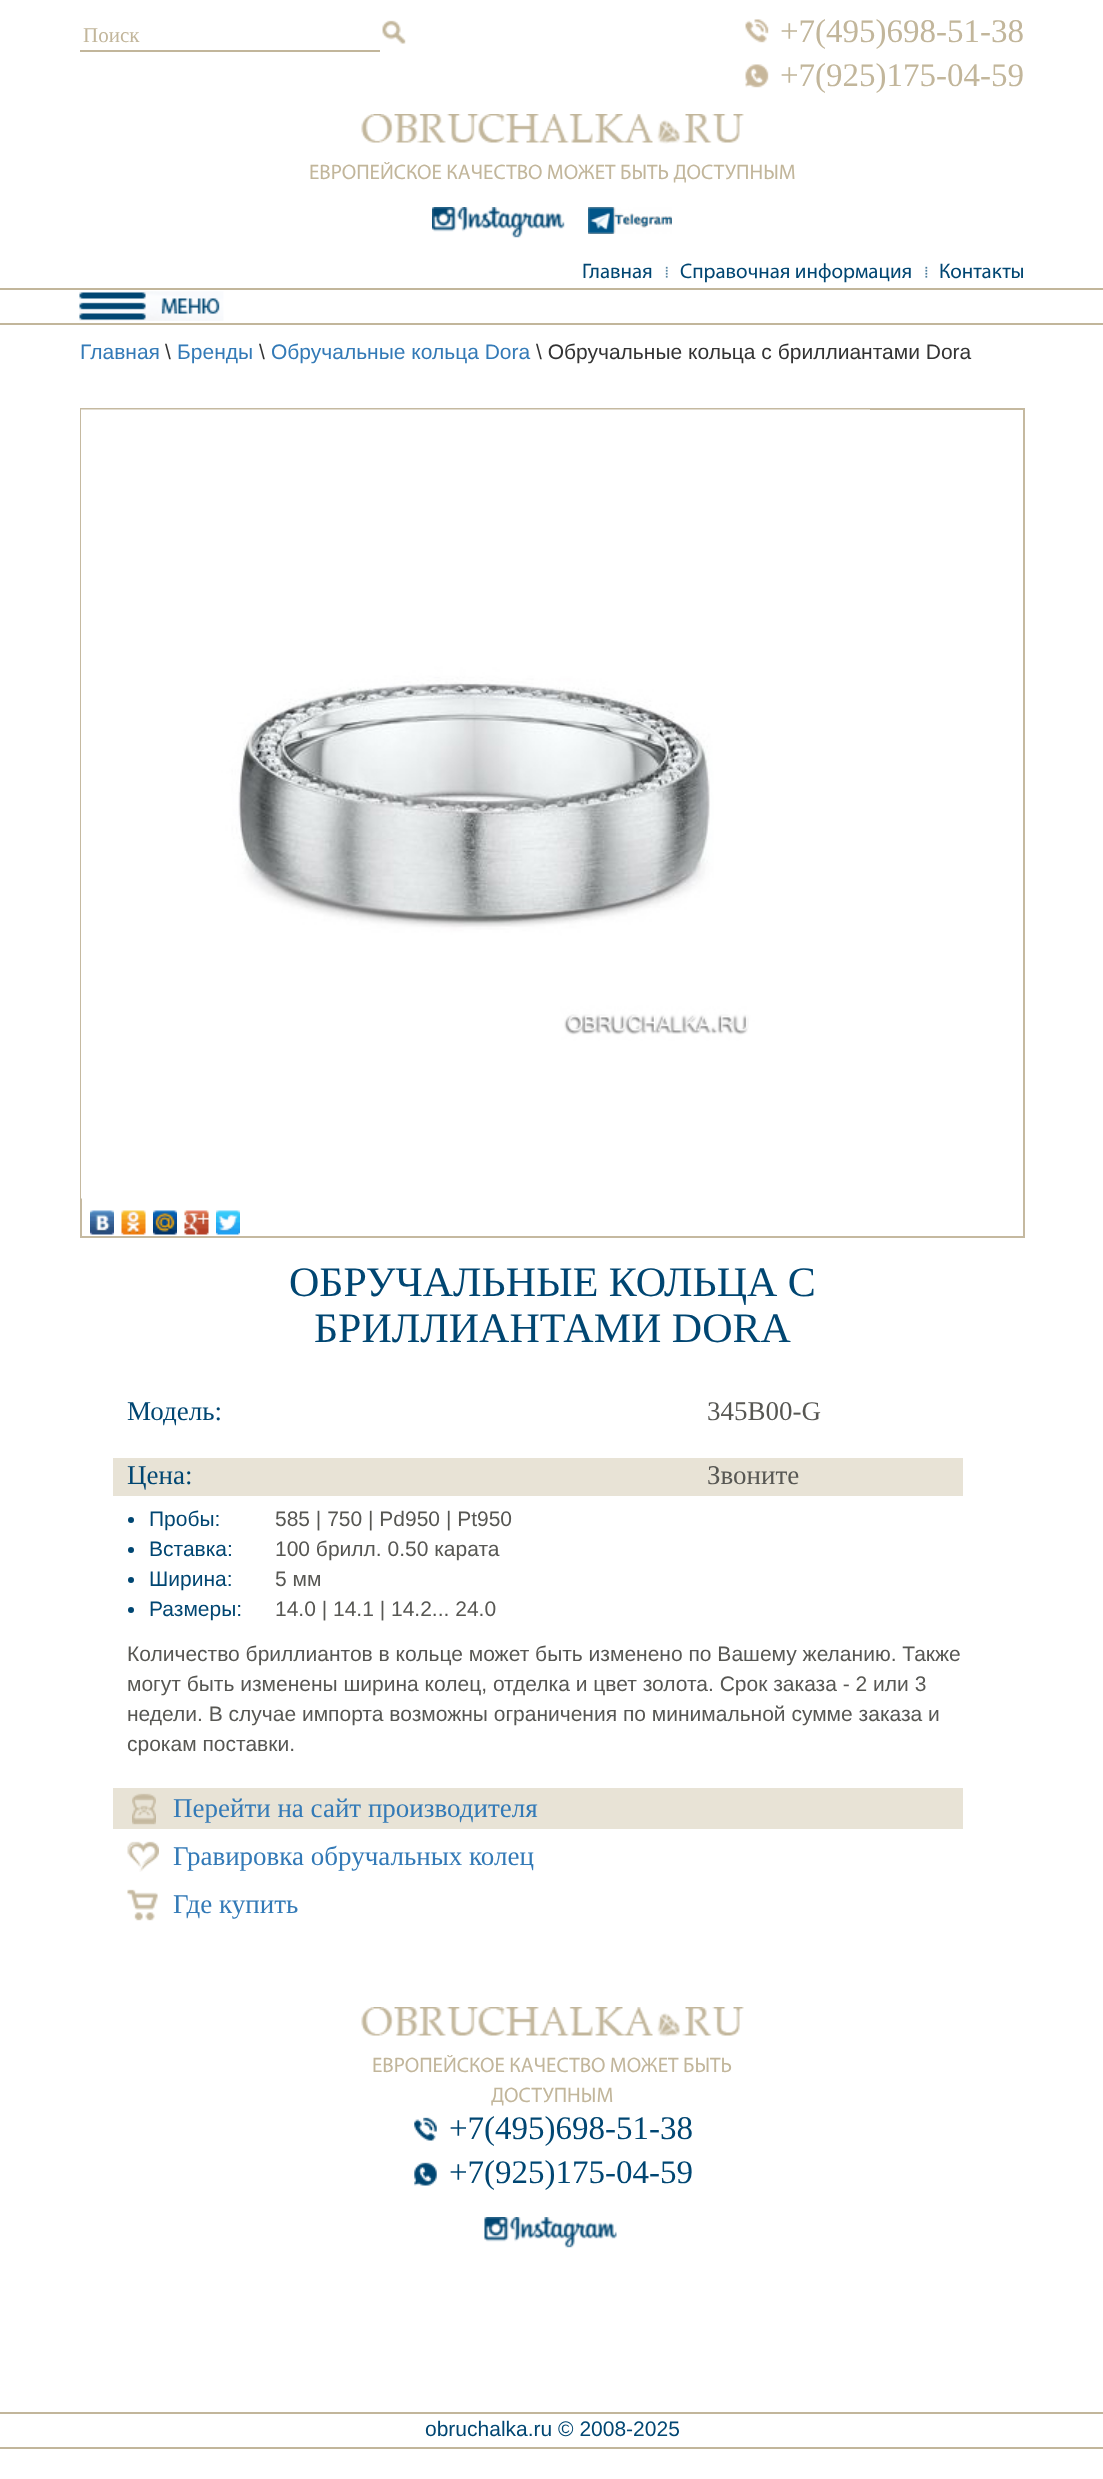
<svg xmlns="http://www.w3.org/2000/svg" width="1103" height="2479">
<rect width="100%" height="100%" fill="#fff"/>
<rect x="80" y="50" width="300" height="2" fill="#c2b69b"/>
<text x="83" y="42" style="font-family:Liberation Serif;font-size:21px;fill:#c2b69b">Поиск</text>
<image x="382" y="20" width="24" height="24" href="media/1.png"/>
<image x="745" y="19" width="24" height="24" href="media/2.png"/>
<text x="780" y="42" style="font-family:Liberation Serif;font-size:33px;fill:#c2b69b">+7(495)698-51-38</text>
<image x="745" y="64" width="24" height="24" href="media/3.png"/>
<text x="780" y="86" style="font-family:Liberation Serif;font-size:33px;fill:#c2b69b">+7(925)175-04-59</text>
<image x="361" y="114" width="383" height="30" href="media/4.png"/>
<text x="309" y="179" style="font-family:Myriad;font-size:21px;fill:#c2b69b">ЕВРОПЕЙСКОЕ КАЧЕСТВО МОЖЕТ БЫТЬ ДОСТУПНЫМ</text>
<image x="432" y="207" width="133" height="31" href="media/5.png"/>
<image x="588" y="207" width="84" height="27" href="media/6.png"/>
<text x="582" y="278" style="font-family:Myriad;font-size:21px;fill:#004672">Главная</text>
<image x="665" y="266" width="3" height="12" href="media/7.png"/>
<text x="680" y="278" style="font-family:Myriad;font-size:21px;fill:#004672">Справочная информация</text>
<image x="925" y="266" width="3" height="12" href="media/8.png"/>
<text x="939" y="278" style="font-family:Myriad;font-size:21px;fill:#004672">Контакты</text>
<rect y="288" width="1103" height="2" fill="#c2b69b"/>
<rect y="323" width="1103" height="2" fill="#c2b69b"/>
<image x="79" y="291" width="145" height="30" href="media/9.png"/>
<text x="80" y="359" style="font-family:Liberation Sans;font-size:21px;fill:#337ab7">Главная</text>
<text x="165" y="359" style="font-family:Liberation Sans;font-size:21px;fill:#333">\</text>
<text x="177" y="359" style="font-family:Liberation Sans;font-size:21px;fill:#337ab7">Бренды</text>
<text x="259" y="359" style="font-family:Liberation Sans;font-size:21px;fill:#333">\</text>
<text x="271" y="359" style="font-family:Liberation Sans;font-size:21px;fill:#337ab7">Обручальные кольца Dora</text>
<text x="536" y="359" style="font-family:Liberation Sans;font-size:21px;fill:#333">\ Обручальные кольца с бриллиантами Dora</text>
<rect x="81" y="409" width="943" height="828" fill="none" stroke="#c5b9a0" stroke-width="2"/>
<image x="81" y="409" width="789" height="790" href="media/10.png"/>
<image x="90" y="1210" width="24" height="25" href="media/11.png"/>
<image x="121" y="1210" width="25" height="25" href="media/12.png"/>
<image x="153" y="1210" width="24" height="25" href="media/13.png"/>
<image x="184" y="1210" width="25" height="25" href="media/14.png"/>
<image x="216" y="1210" width="24" height="25" href="media/15.png"/>
<text x="289" y="1296" style="font-family:Liberation Serif;font-size:42px;fill:#004672">ОБРУЧАЛЬНЫЕ КОЛЬЦА С</text>
<text x="314" y="1342" style="font-family:Liberation Serif;font-size:42px;fill:#004672">БРИЛЛИАНТАМИ DORA</text>
<text x="127" y="1420" style="font-family:Liberation Serif;font-size:27px;fill:#004672">Модель:</text>
<text x="707" y="1420" style="font-family:Liberation Serif;font-size:27px;fill:#575753">345B00-G</text>
<rect x="113" y="1458" width="850" height="38" fill="#e8e3d6"/>
<text x="127" y="1484" style="font-family:Liberation Serif;font-size:27px;fill:#004672">Цена:</text>
<text x="707" y="1484" style="font-family:Liberation Serif;font-size:27px;fill:#575753">Звоните</text>
<circle cx="131" cy="1520" r="3" fill="#004672"/>
<text x="149" y="1526" style="font-family:Liberation Sans;font-size:21px;fill:#004672">Пробы:</text>
<text x="275" y="1526" style="font-family:Liberation Sans;font-size:21px;fill:#575753">585 | 750 | Pd950 | Pt950</text>
<circle cx="131" cy="1550" r="3" fill="#004672"/>
<text x="149" y="1556" style="font-family:Liberation Sans;font-size:21px;fill:#004672">Вставка:</text>
<text x="275" y="1556" style="font-family:Liberation Sans;font-size:21px;fill:#575753">100 брилл. 0.50 карата</text>
<circle cx="131" cy="1580" r="3" fill="#004672"/>
<text x="149" y="1586" style="font-family:Liberation Sans;font-size:21px;fill:#004672">Ширина:</text>
<text x="275" y="1586" style="font-family:Liberation Sans;font-size:21px;fill:#575753">5 мм</text>
<circle cx="131" cy="1610" r="3" fill="#004672"/>
<text x="149" y="1616" style="font-family:Liberation Sans;font-size:21px;fill:#004672">Размеры:</text>
<text x="275" y="1616" style="font-family:Liberation Sans;font-size:21px;fill:#575753">14.0 | 14.1 | 14.2... 24.0</text>
<text x="127" y="1661" style="font-family:Liberation Sans;font-size:21px;fill:#575753">Количество бриллиантов в кольце может быть изменено по Вашему желанию. Также</text>
<text x="127" y="1691" style="font-family:Liberation Sans;font-size:21px;fill:#575753">могут быть изменены ширина колец, отделка и цвет золота. Срок заказа - 2 или 3</text>
<text x="127" y="1721" style="font-family:Liberation Sans;font-size:21px;fill:#575753">недели. В случае импорта возможны ограничения по минимальной сумме заказа и</text>
<text x="127" y="1751" style="font-family:Liberation Sans;font-size:21px;fill:#575753">срокам поставки.</text>
<rect x="113" y="1788" width="850" height="41" fill="#e8e3d6"/>
<image x="132" y="1793" width="24" height="32" href="media/16.png"/>
<text x="173" y="1817" style="font-family:Liberation Serif;font-size:27px;fill:#337ab7">Перейти на сайт производителя</text>
<image x="127" y="1841" width="32" height="31" href="media/17.png"/>
<text x="173" y="1865" style="font-family:Liberation Serif;font-size:27px;fill:#337ab7">Гравировка обручальных колец</text>
<image x="127" y="1889" width="31" height="32" href="media/18.png"/>
<text x="173" y="1913" style="font-family:Liberation Serif;font-size:27px;fill:#337ab7">Где купить</text>
<image x="361" y="2007" width="383" height="30" href="media/4.png"/>
<text x="372" y="2072" style="font-family:Myriad;font-size:21px;fill:#c2b69b">ЕВРОПЕЙСКОЕ КАЧЕСТВО МОЖЕТ БЫТЬ</text>
<text x="491" y="2102" style="font-family:Myriad;font-size:21px;fill:#c2b69b">ДОСТУПНЫМ</text>
<image x="414" y="2117" width="23" height="24" href="media/19.png"/>
<text x="449" y="2139" style="font-family:Liberation Serif;font-size:33px;fill:#004672">+7(495)698-51-38</text>
<image x="414" y="2162" width="23" height="24" href="media/20.png"/>
<text x="449" y="2183" style="font-family:Liberation Serif;font-size:33px;fill:#004672">+7(925)175-04-59</text>
<image x="484" y="2217" width="133" height="31" href="media/21.png"/>
<rect y="2412" width="1103" height="2" fill="#c2b69b"/>
<rect y="2447" width="1103" height="2" fill="#c2b69b"/>
<text x="425" y="2436" style="font-family:Liberation Sans;font-size:21px;fill:#004672">obruchalka.ru © 2008-2025</text>
</svg>
